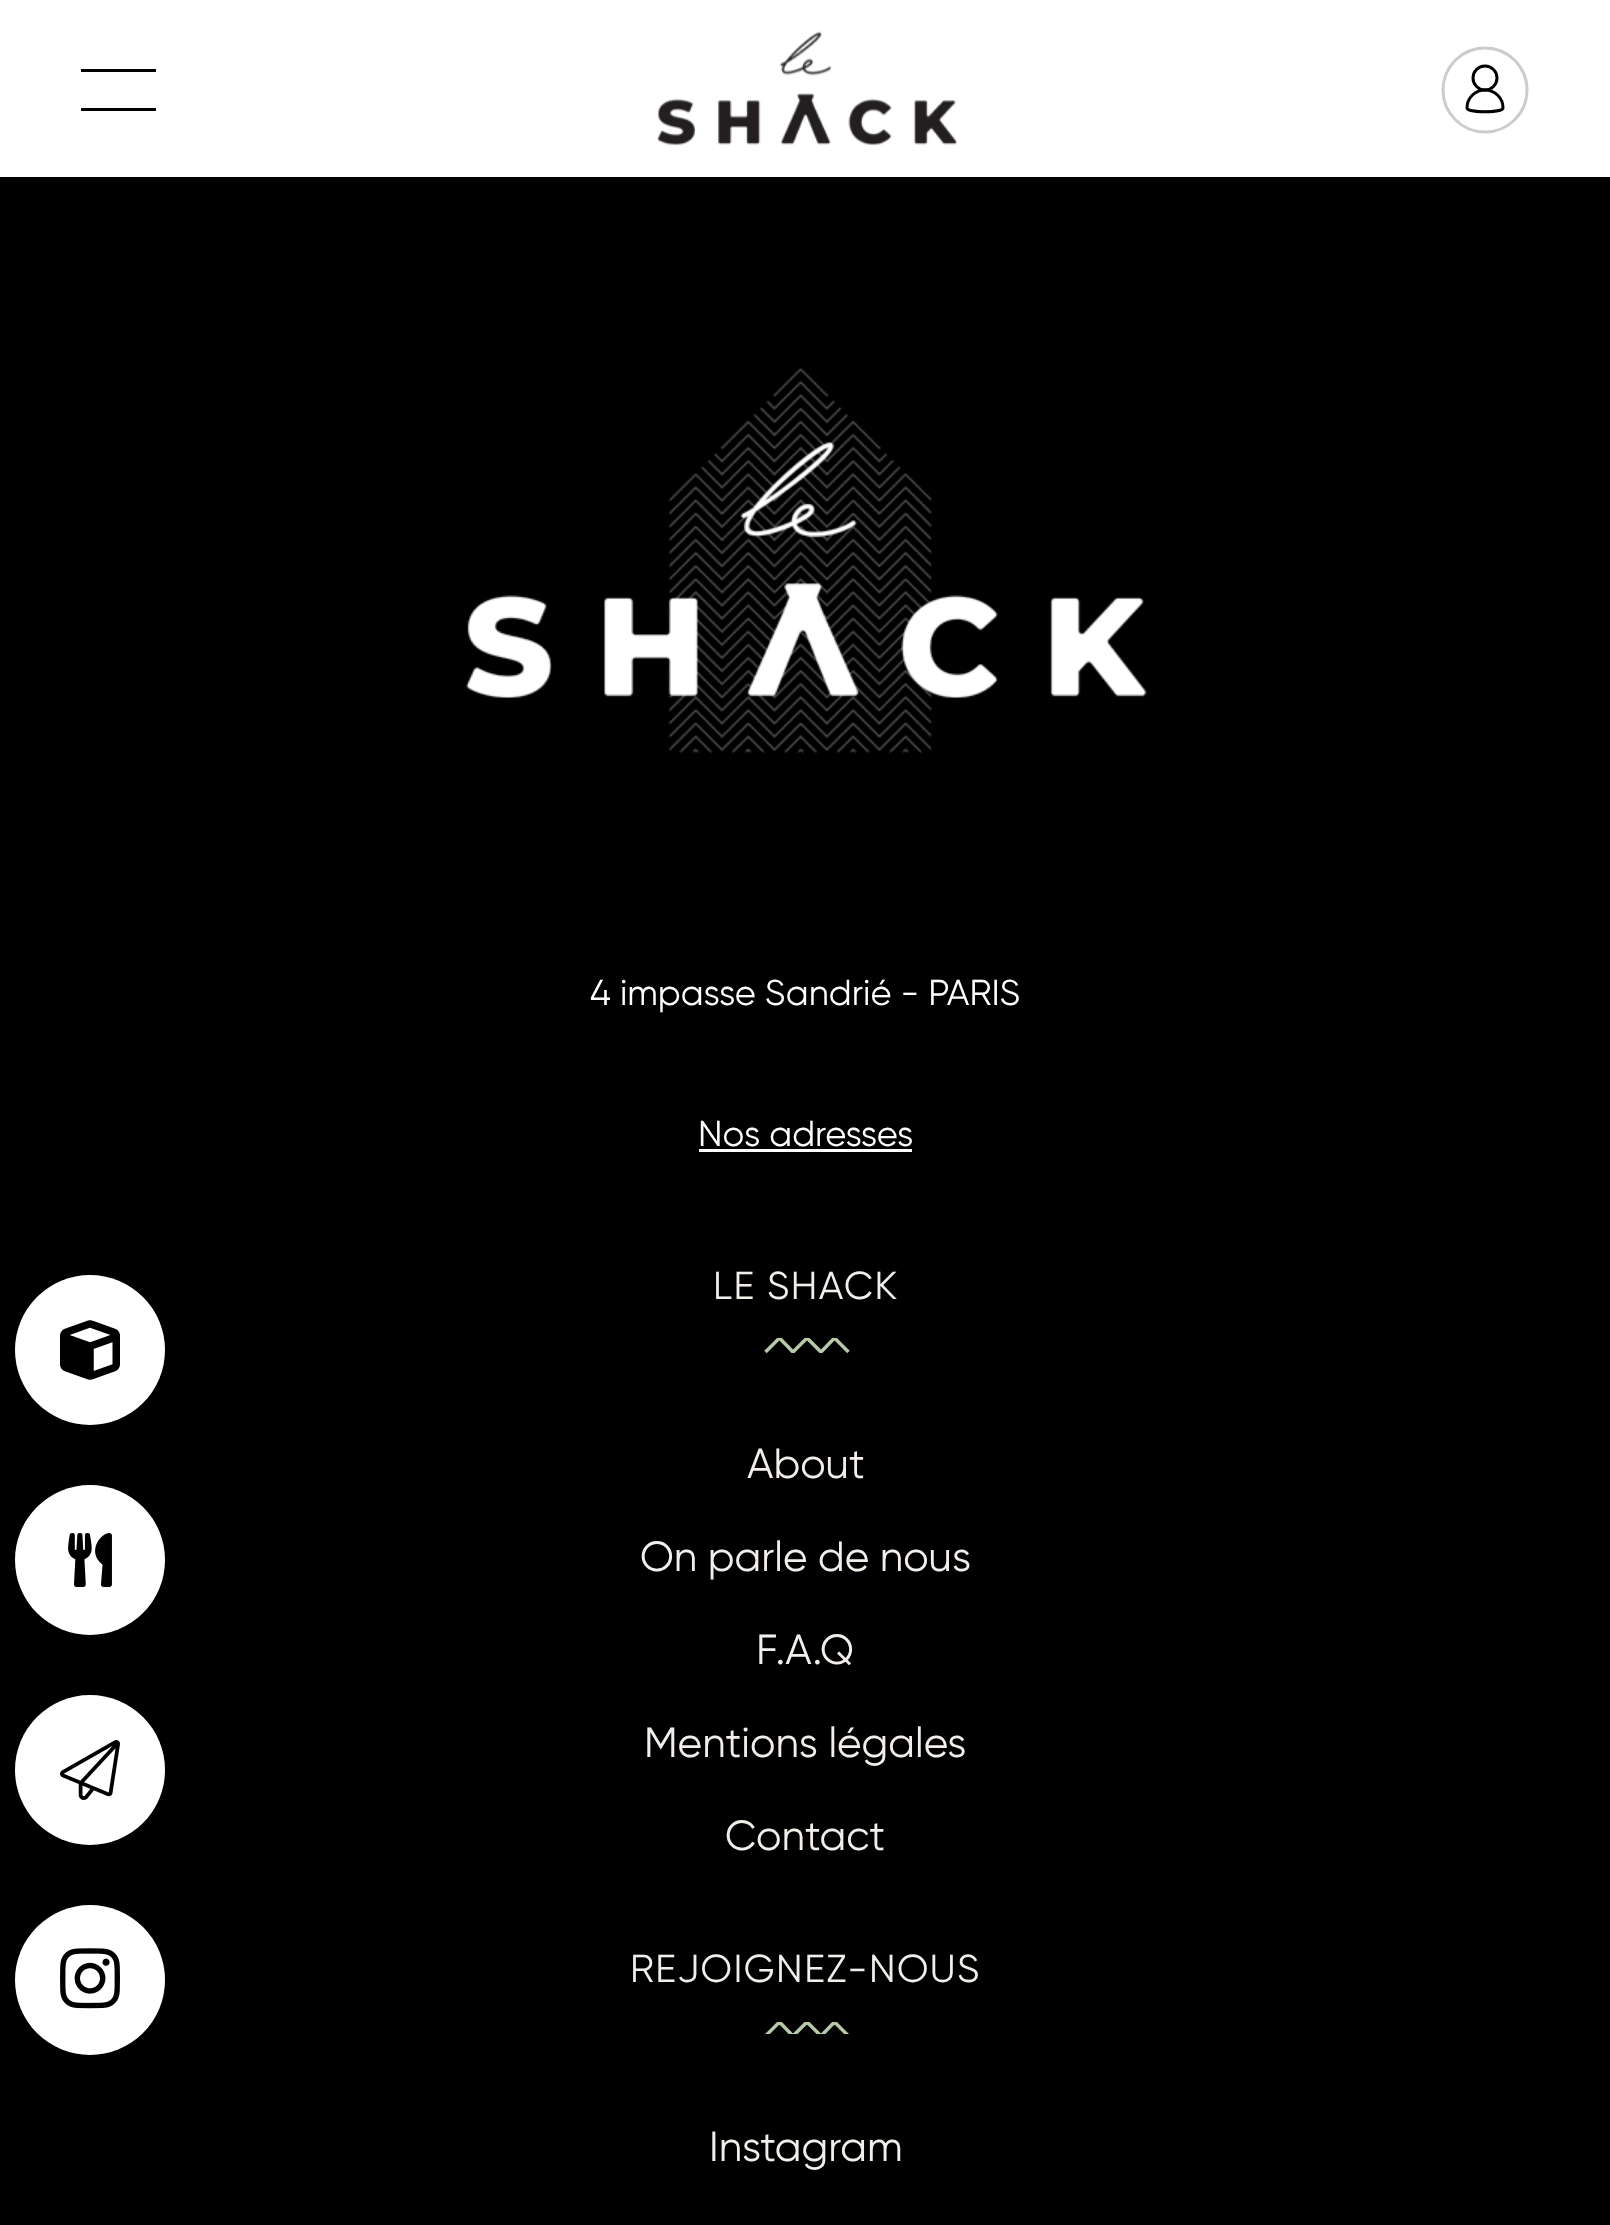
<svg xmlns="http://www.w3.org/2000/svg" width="1610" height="2225">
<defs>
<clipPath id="clip1"><rect x="762" y="1338" width="90" height="15"/></clipPath>
<clipPath id="clip2"><rect x="762" y="2022" width="90" height="12"/></clipPath>
</defs>
<rect width="100%" height="100%" fill="#fff"/>
<rect x="81" y="69" width="75" height="3" fill="#000"/>
<rect x="81" y="108" width="75" height="3" fill="#000"/>
<image x="657" y="31" width="300" height="115" href="media/1.png"/>
<circle cx="1485" cy="90" r="42" fill="none" stroke="#ccc" stroke-width="3"/>
<circle cx="1485" cy="78" r="12" fill="none" stroke="#000" stroke-width="3"/>
<path d="M1503 108c0-10-8-18-18-18c-10 0-18 8-18 18c0 5 36 5 36 0z" fill="none" stroke="#000" stroke-width="3"/>
<rect y="177" width="1610" height="2048" fill="#000"/>
<circle cx="90" cy="1350" r="75" fill="#fff"/>
<image x="60" y="1320" width="60" height="60" href="media/2.png"/>
<circle cx="90" cy="1560" r="75" fill="#fff"/>
<image x="68" y="1533" width="44" height="54" href="media/3.png"/>
<circle cx="90" cy="1770" r="75" fill="#fff"/>
<image x="60" y="1740" width="60" height="60" href="media/4.png"/>
<circle cx="90" cy="1980" r="75" fill="#fff"/>
<image x="60" y="1948" width="60" height="61" href="media/5.png"/>
<image x="466" y="367" width="681" height="387" href="media/6.png"/>
<text x="590" y="1005" style="font-family:Gilroy;font-size:36px;fill:#fff">4 impasse Sandrié - PARIS</text>
<text x="698" y="1146" style="font-family:Gilroy;font-size:36px;fill:#fff">Nos adresses</text>
<rect x="699" y="1149" width="213" height="3" fill="#fff"/>
<text x="713" y="1299" style="font-family:Gilroy;font-size:39px;letter-spacing:1.5px;fill:#f2eeea">LE SHACK</text>
<g clip-path="url(#clip1)">
<path d="M765.5 1352l14-14l13.5 14l14-14l14 14l13.5-14l14 14" fill="none" stroke="#b6c9a9" stroke-width="3.5"/>
</g>
<text x="747" y="1478" style="font-family:Gilroy;font-size:42px;fill:#f2eeea">About</text>
<text x="640" y="1571" style="font-family:Gilroy;font-size:42px;fill:#f2eeea">On parle de nous</text>
<text x="756" y="1664" style="font-family:Gilroy;font-size:42px;fill:#f2eeea">F.A.Q</text>
<text x="644" y="1757" style="font-family:Gilroy;font-size:42px;fill:#f2eeea">Mentions légales</text>
<text x="725" y="1850" style="font-family:Gilroy;font-size:42px;fill:#f2eeea">Contact</text>
<text x="630" y="1982" style="font-family:Gilroy;font-size:39px;letter-spacing:1.5px;fill:#f2eeea">REJOIGNEZ-NOUS</text>
<g clip-path="url(#clip2)">
<path d="M765.5 2036l14-14l13.5 14l14-14l14 14l13.5-14l14 14" fill="none" stroke="#b6c9a9" stroke-width="3.5"/>
</g>
<text x="709" y="2161" style="font-family:Gilroy;font-size:42px;fill:#f2eeea">Instagram</text>
</svg>
